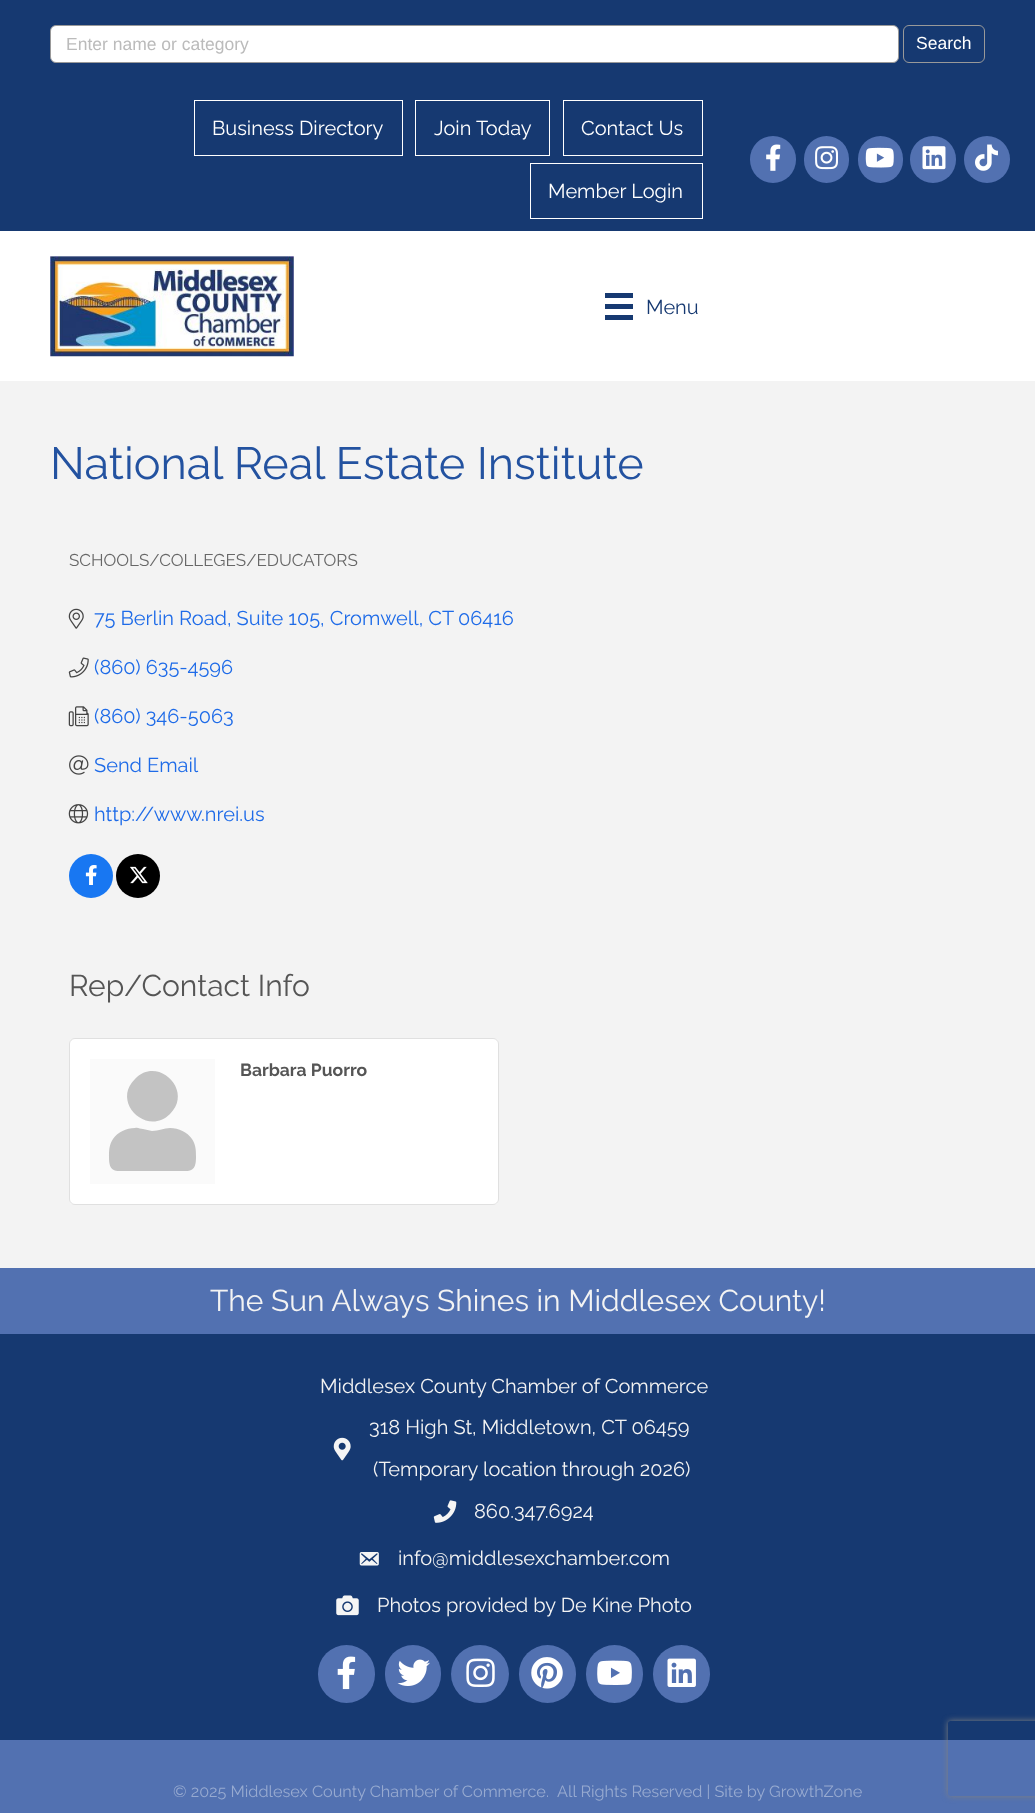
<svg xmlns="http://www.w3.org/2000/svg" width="1035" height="1813">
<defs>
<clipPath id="clip1"><path d="M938 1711h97v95h-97zm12.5 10h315c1.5 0 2.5 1 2.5 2.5v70c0 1.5-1 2.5-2.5 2.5h-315c-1.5 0-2.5-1-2.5-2.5v-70c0-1.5 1-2.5 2.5-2.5z" clip-rule="evenodd"/></clipPath>
</defs>
<rect width="100%" height="100%" fill="#fff"/>
<rect width="1035" height="231" fill="#163971"/>
<rect x="50.5" y="25.5" width="848" height="37" rx="5.5" fill="#fff" stroke="#999"/>
<text x="66" y="50" style="font-family:Liberation Sans;font-size:17.5px;fill:#bbb">Enter name or category</text>
<rect x="903.5" y="25.5" width="81" height="37" rx="5.5" fill="none" stroke="#999"/>
<text x="916" y="49" style="font-family:Liberation Sans;font-size:17.5px;fill:#fff">Search</text>
<rect x="194.5" y="100.5" width="208" height="55" fill="none" stroke="#fff"/>
<text x="212" y="135" style="font-family:Raleway;font-size:20px;fill:#fff">Business Directory</text>
<rect x="415.5" y="100.5" width="134" height="55" fill="none" stroke="#fff"/>
<text x="434" y="135" style="font-family:Raleway;font-size:20px;fill:#fff">Join Today</text>
<rect x="563.5" y="100.5" width="139" height="55" fill="none" stroke="#fff"/>
<text x="581" y="135" style="font-family:Raleway;font-size:20px;fill:#fff">Contact Us</text>
<rect x="530.5" y="163.5" width="172" height="55" fill="none" stroke="#fff"/>
<text x="548" y="198" style="font-family:Raleway;font-size:20px;fill:#fff">Member Login</text>
<rect x="750" y="136" width="46" height="47" rx="23" fill="#5271b1"/>
<image x="766" y="144" width="15" height="27" href="media/1.png"/>
<rect x="804" y="136" width="45" height="47" rx="22.5" fill="#5271b1"/>
<image x="815" y="146" width="23" height="24" href="media/2.png"/>
<rect x="858" y="136" width="45" height="47" rx="22.5" fill="#5271b1"/>
<image x="865" y="147" width="29" height="21" href="media/3.png"/>
<rect x="910" y="136" width="46" height="47" rx="23" fill="#5271b1"/>
<image x="922" y="146" width="24" height="24" href="media/4.png"/>
<rect x="964" y="136" width="46" height="47" rx="23" fill="#5271b1"/>
<image x="975" y="144" width="23" height="27" href="media/5.png"/>
<image x="50" y="256" width="244" height="101" href="media/6.png"/>
<rect x="605" y="293" width="28" height="5" fill="#163971"/>
<rect x="605" y="304" width="28" height="5" fill="#163971"/>
<rect x="605" y="315" width="28" height="5" fill="#163971"/>
<text x="646" y="314" style="font-family:Raleway;font-size:20px;fill:#163971">Menu</text>
<rect y="381" width="1035" height="887" fill="#f3f3f3"/>
<text x="50" y="479" style="font-family:Raleway;font-size:45px;fill:#2352a0">National Real Estate Institute</text>
<text x="69" y="566" style="font-family:Raleway;font-size:17px;fill:#676767">SCHOOLS/COLLEGES/EDUCATORS</text>
<image x="68" y="608" width="16" height="21" href="media/7.png"/>
<text x="94" y="625" style="font-family:Raleway;font-size:20px;fill:#1e6be8">75 Berlin Road, Suite 105, Cromwell, CT</text>
<text x="458" y="625" style="font-family:Raleway;font-size:20px;fill:#1e6be8">06416</text>
<image x="68" y="657" width="21" height="21" href="media/8.png"/>
<text x="94" y="674" style="font-family:Raleway;font-size:20px;fill:#1e6be8">(860) 635-4596</text>
<image x="68" y="706" width="21" height="21" href="media/9.png"/>
<text x="94" y="723" style="font-family:Raleway;font-size:20px;fill:#1e6be8">(860) 346-5063</text>
<image x="69" y="755" width="20" height="20" href="media/10.png"/>
<text x="94" y="772" style="font-family:Raleway;font-size:20px;fill:#1e6be8">Send Email</text>
<image x="68" y="804" width="21" height="20" href="media/11.png"/>
<text x="94" y="821" style="font-family:Raleway;font-size:20px;fill:#1e6be8">http://www.nrei.us</text>
<circle cx="91" cy="876" r="22" fill="#1877f2"/>
<image x="85" y="865" width="12" height="20" href="media/12.png"/>
<circle cx="138" cy="876" r="22" fill="#000"/>
<image x="130" y="866" width="18" height="18" href="media/13.png"/>
<text x="69" y="996" style="font-family:Raleway;font-size:30px;fill:#555">Rep/Contact Info</text>
<rect x="69" y="1038" width="430" height="167" rx="6" fill="#fff"/>
<rect x="69.5" y="1038.5" width="429" height="166" rx="5.5" fill="none" stroke="#0000001f"/>
<rect x="90" y="1059" width="125" height="125" fill="#fafafa"/>
<path d="M170 1114c-23 23-59-12-35-35c23-24 59 12 35 35zm0 14c9 0 17 4 22 11c4 6 4 12 4 18c0 16-6 14-21 14h-45c-15 0-21 2-21-14c0-6 0-12 4-18c5-7 13-11 22-11c3-1 5 1 8 1l9 2c7 0 12-3 18-3z" fill="#c3c3c3"/>
<text x="240" y="1076" style="font-family:Raleway;font-size:17.5px;font-weight:bold;fill:#555">Barbara Puorro</text>
<rect y="1268" width="1035" height="66" fill="#5271b1"/>
<text x="210" y="1311" style="font-family:Raleway;font-size:30px;fill:#f3f3f3">The Sun Always Shines in Middlesex County!</text>
<rect y="1334" width="1035" height="406" fill="#163971"/>
<text x="320" y="1393" style="font-family:Raleway;font-size:20px;fill:#f3f3f3">Middlesex County Chamber of Commerce</text>
<image x="333" y="1437" width="18" height="24" href="media/14.png"/>
<text x="369" y="1434" style="font-family:Raleway;font-size:20px;fill:#f3f3f3">318 High St, Middletown, CT 06459</text>
<text x="373" y="1476" style="font-family:Raleway;font-size:20px;fill:#f3f3f3">(Temporary location through 2026)</text>
<image x="433" y="1500" width="24" height="23" href="media/15.png"/>
<text x="474" y="1518" style="font-family:Raleway;font-size:20px;fill:#f3f3f3">860.347.6924</text>
<image x="359" y="1552" width="20" height="14" href="media/16.png"/>
<text x="398" y="1565" style="font-family:Raleway;font-size:20px;fill:#f3f3f3">info@middlesexchamber.com</text>
<image x="336" y="1595" width="23" height="21" href="media/17.png"/>
<text x="377" y="1612" style="font-family:Raleway;font-size:20px;fill:#f3f3f3">Photos provided by De Kine Photo</text>
<rect x="318" y="1645" width="57" height="58" rx="28.5" fill="#5271b1"/>
<image x="337" y="1656" width="19" height="34" href="media/18.png"/>
<rect x="385" y="1645" width="56" height="58" rx="28" fill="#5271b1"/>
<image x="397" y="1659" width="33" height="27" href="media/19.png"/>
<circle cx="480" cy="1674" r="29" fill="#5271b1"/>
<image x="466" y="1658" width="29" height="29" href="media/20.png"/>
<rect x="519" y="1645" width="57" height="58" rx="28.5" fill="#5271b1"/>
<image x="531" y="1657" width="32" height="32" href="media/21.png"/>
<rect x="586" y="1645" width="57" height="58" rx="28.5" fill="#5271b1"/>
<image x="597" y="1660" width="35" height="25" href="media/22.png"/>
<rect x="653" y="1645" width="57" height="58" rx="28.5" fill="#5271b1"/>
<image x="667" y="1658" width="29" height="29" href="media/23.png"/>
<rect y="1740" width="1035" height="73" fill="#5271b1"/>
<text x="173" y="1797" style="font-family:Raleway;font-size:16.25px;fill:#97aad0">© 2025 Middlesex County Chamber of Commerce.</text>
<text x="557" y="1797" style="font-family:Raleway;font-size:16.25px;fill:#97aad0">All Rights Reserved | Site by GrowthZone</text>
<g clip-path="url(#clip1)">
<rect x="948" y="1721" width="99" height="75" rx="2.5" fill="#808080" filter="blur(3px)"/>
</g>
</svg>
